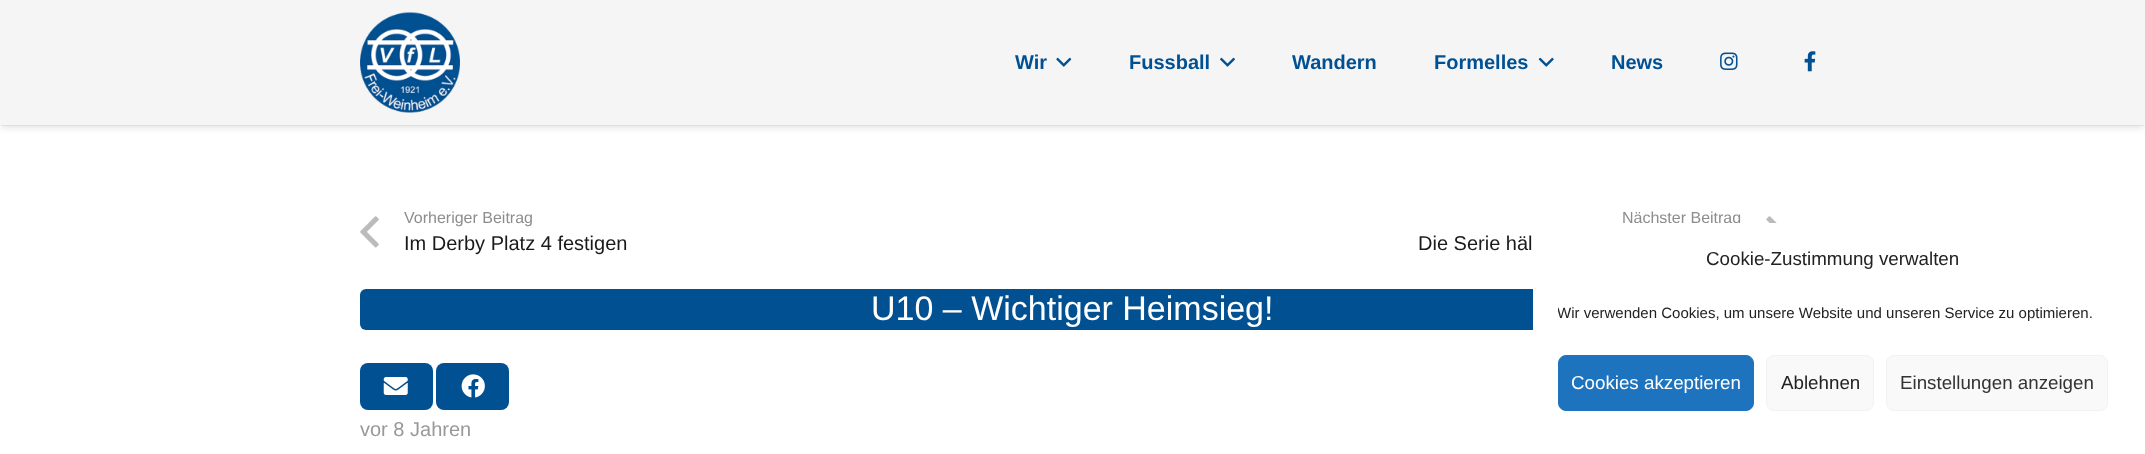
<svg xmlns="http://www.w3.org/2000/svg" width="2145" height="454">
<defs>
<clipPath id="clip1"><rect x="1558" y="301" width="550" height="29"/></clipPath>
</defs>
<rect width="100%" height="100%" fill="#fff"/>
<rect x="1" y="4" width="2143" height="122" fill="#0000000d" filter="blur(0.5px)"/>
<rect x="1" y="5" width="2143" height="123" fill="#0000001a" filter="blur(3px)"/>
<rect width="2145" height="125" fill="#f5f5f5"/>
<image x="360" y="12" width="100" height="101" href="media/1.png"/>
<text x="1015" y="69" style="font-family:Liberation Sans;font-size:20px;font-weight:bold;fill:#015092">Wir</text>
<image x="1056" y="57" width="16" height="10" href="media/2.png"/>
<text x="1129" y="69" style="font-family:Liberation Sans;font-size:20px;font-weight:bold;fill:#015092">Fussball</text>
<image x="1220" y="57" width="15" height="10" href="media/3.png"/>
<text x="1292" y="69" style="font-family:Liberation Sans;font-size:20px;font-weight:bold;fill:#015092">Wandern</text>
<text x="1434" y="69" style="font-family:Liberation Sans;font-size:20px;font-weight:bold;fill:#015092">Formelles</text>
<image x="1538" y="57" width="16" height="10" href="media/4.png"/>
<text x="1611" y="69" style="font-family:Liberation Sans;font-size:20px;font-weight:bold;fill:#015092">News</text>
<image x="1720" y="52" width="18" height="18" href="media/5.png"/>
<image x="1804" y="51" width="12" height="21" href="media/6.png"/>
<image x="360" y="216" width="19" height="32" href="media/7.png"/>
<text x="404" y="223" style="font-family:Liberation Sans;font-size:16px;fill:#8d8d8d">Vorheriger Beitrag</text>
<text x="404" y="250" style="font-family:Liberation Sans;font-size:20px;fill:#1a1a1a">Im Derby Platz 4 festigen</text>
<text x="1622" y="223" style="font-family:Liberation Sans;font-size:16px;fill:#8d8d8d">Nächster Beitrag</text>
<image x="1766" y="216" width="11" height="7" href="media/8.png"/>
<text x="1418" y="250" style="font-family:Liberation Sans;font-size:20px;fill:#1a1a1a">Die Serie häl</text>
<rect x="360" y="289" width="1425" height="41" rx="6" fill="#015092"/>
<text x="871" y="320" style="font-family:Liberation Sans;font-size:34px;fill:#fff">U10 – Wichtiger Heimsieg!</text>
<rect x="360" y="363" width="73" height="47" rx="8" fill="#015092"/>
<image x="383" y="377" width="25" height="18" href="media/9.png"/>
<rect x="436" y="363" width="73" height="47" rx="8" fill="#015092"/>
<image x="461" y="374" width="24" height="24" href="media/10.png"/>
<text x="360" y="436" style="font-family:Liberation Sans;font-size:20px;fill:#999">vor 8 Jahren</text>
<rect x="1533" y="223" width="600" height="220" rx="15" fill="#fff"/>
<text x="1706" y="265" style="font-family:Liberation Sans;font-size:18.75px;fill:#222">Cookie-Zustimmung verwalten</text>
<g clip-path="url(#clip1)">
<text x="1557" y="318" style="font-family:Liberation Sans;font-size:15px;fill:#222">Wir verwenden Cookies, um unsere Website und unseren Service zu optimieren.</text>
</g>
<rect x="1558.5" y="355.5" width="195" height="55" rx="7.5" fill="#1e73be" stroke="#1e73be"/>
<text x="1571" y="389" style="font-family:Liberation Sans;font-size:18.75px;fill:#fff">Cookies akzeptieren</text>
<rect x="1766.5" y="355.5" width="107" height="55" rx="7.5" fill="#f9f9f9" stroke="#f2f2f2"/>
<text x="1781" y="389" style="font-family:Liberation Sans;font-size:18.75px;fill:#222">Ablehnen</text>
<rect x="1886.5" y="355.5" width="221" height="55" rx="7.5" fill="#f9f9f9" stroke="#f2f2f2"/>
<text x="1900" y="389" style="font-family:Liberation Sans;font-size:18.75px;fill:#333">Einstellungen anzeigen</text>
</svg>
